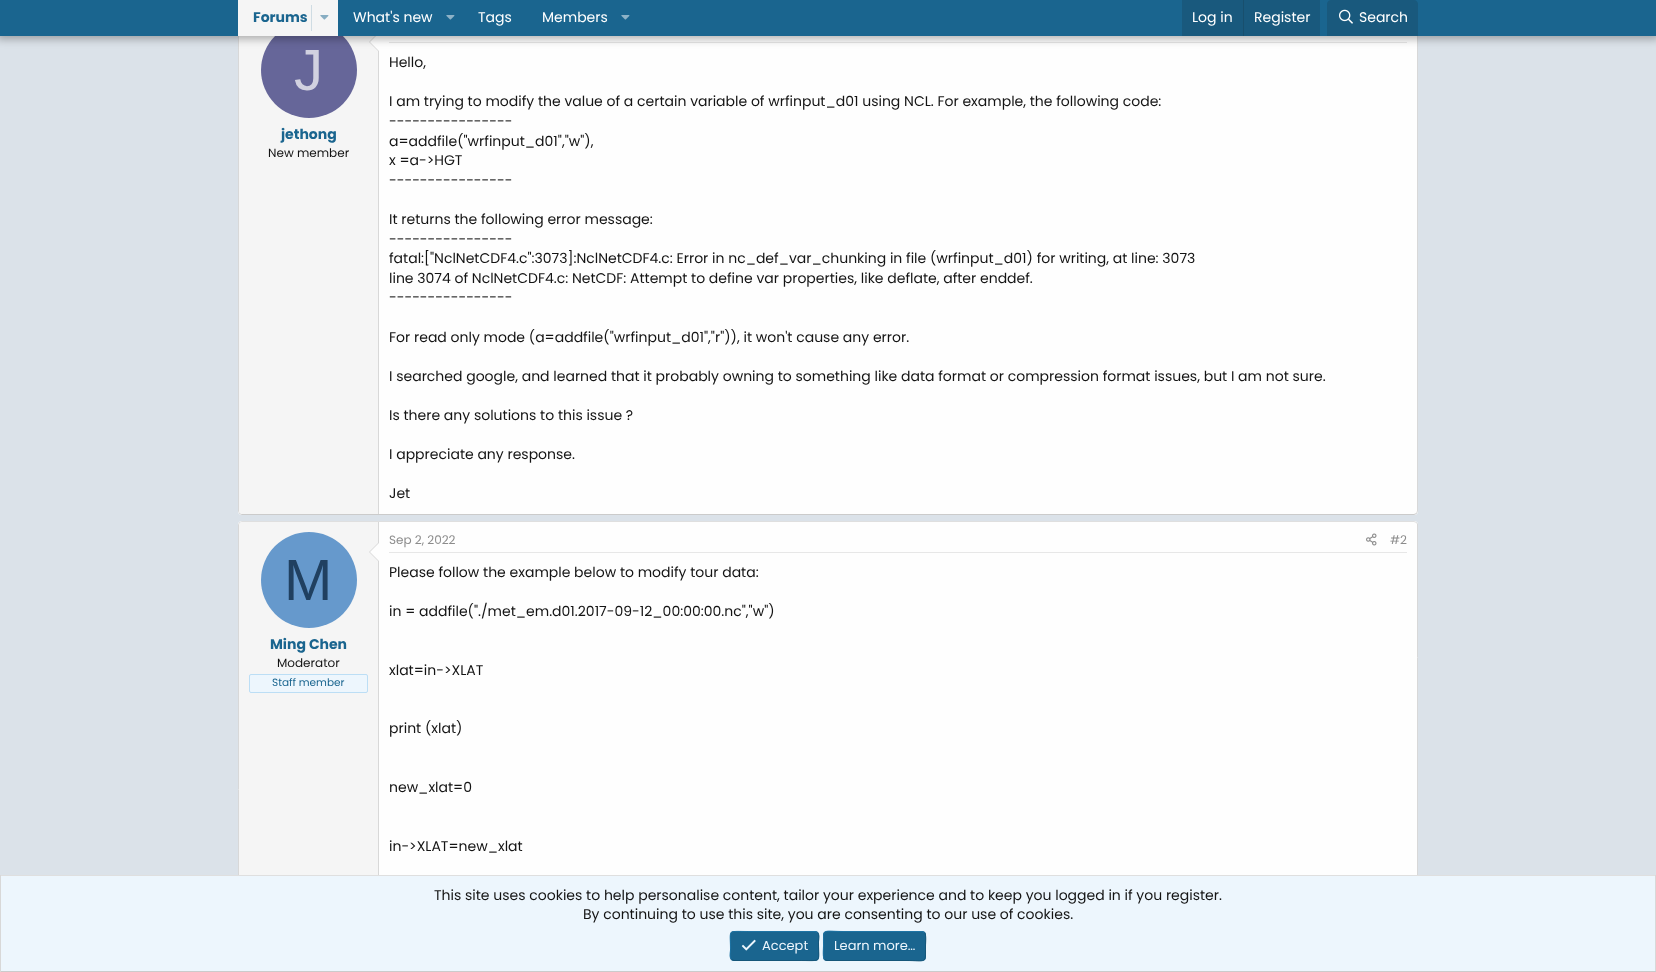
<svg xmlns="http://www.w3.org/2000/svg" width="1656" height="972">
<rect width="100%" height="100%" fill="#dbe2e9"/>
<rect x="238" y="11" width="1180" height="504" rx="4" fill="#fefefe"/>
<path d="M1416.5 12.5l1 2.5v496l-1 2.5" fill="none" stroke="#d8d8d8"/>
<path d="M1416.5 513.5l-2.5 1h-1172l-2.5-1" fill="none" stroke="#cbcbcb"/>
<path d="M239.5 513.5l-1-2.5v-496l1-2.5" fill="none" stroke="#d8d8d8"/>
<path d="M242 12h137v502h-137c-1.5 0-3-1.5-3-3v-496c0-1.5 1.5-3 3-3z" fill="#f5f5f5"/>
<rect x="378" y="51" width="1" height="463" fill="#d8d8d8"/>
<path d="M379 32v20l-10-10z" fill="#d8d8d8"/>
<path d="M379 33v18l-9-9z" fill="#fefefe"/>
<circle cx="309" cy="70" r="48" fill="#669"/>
<rect x="389" y="42" width="1018" height="1" fill="#e7e7e7"/>
<rect x="-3" y="-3" width="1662" height="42" fill="#0000004d" filter="blur(4px)"/>
<rect width="1656" height="36" fill="#1a658f"/>
<rect x="238" width="100" height="36" fill="#f5f5f5"/>
<text x="253" y="22" style="font-family:Poppins;font-size:14px;font-weight:bold;fill:#1a658f">Forums</text>
<rect x="311" y="5" width="1" height="26" fill="#cfdce3"/>
<image x="320" y="15" width="9" height="5" href="media/1.png"/>
<text x="353" y="22" style="font-family:Poppins;font-size:14px;fill:#fff">What's new</text>
<image x="446" y="15" width="9" height="5" href="media/2.png"/>
<text x="478" y="22" style="font-family:Poppins;font-size:14px;fill:#fff">Tags</text>
<text x="542" y="22" style="font-family:Poppins;font-size:14px;fill:#fff">Members</text>
<image x="621" y="15" width="9" height="5" href="media/2.png"/>
<rect x="1182" width="138" height="36" fill="#19597d"/>
<text x="1192" y="22" style="font-family:Poppins;font-size:14px;fill:#fff">Log in</text>
<rect x="1243" width="1" height="36" fill="#184f6d"/>
<text x="1254" y="22" style="font-family:Poppins;font-size:14px;fill:#fff">Register</text>
<path d="M1331 0h83c2 0 4 2 4 4v32h-91v-32c0-2 2-4 4-4z" fill="#19597d"/>
<image x="1339" y="9" width="14" height="15" href="media/3.png"/>
<text x="1359" y="22" style="font-family:Poppins;font-size:14px;fill:#fff">Search</text>
<text x="294" y="90" style="font-family:Liberation Sans;font-size:58px;fill:#d1d1e0">J</text>
<text x="281" y="139" style="font-family:Poppins;font-size:14px;font-weight:bold;fill:#1a658f">jethong</text>
<text x="268" y="157" style="font-family:Poppins;font-size:12px;fill:#141414">New member</text>
<text x="389" y="67" style="font-family:Poppins;font-size:14px;fill:#141414">Hello,</text>
<text x="389" y="106" style="font-family:Poppins;font-size:14px;fill:#141414">I am trying to modify the value of a certain variable of wrfinput_d01 using NCL. For example, the following code:</text>
<text x="389" y="126" style="font-family:Poppins;font-size:14px;fill:#141414">----------------</text>
<text x="389" y="146" style="font-family:Poppins;font-size:14px;fill:#141414">a=addfile("wrfinput_d01","w"),</text>
<text x="389" y="165" style="font-family:Poppins;font-size:14px;fill:#141414">x =a-&gt;HGT</text>
<text x="389" y="185" style="font-family:Poppins;font-size:14px;fill:#141414">----------------</text>
<text x="389" y="224" style="font-family:Poppins;font-size:14px;fill:#141414">It returns the following error message:</text>
<text x="389" y="244" style="font-family:Poppins;font-size:14px;fill:#141414">----------------</text>
<text x="389" y="263" style="font-family:Poppins;font-size:14px;fill:#141414">fatal:["NclNetCDF4.c":3073]:NclNetCDF4.c: Error in nc_def_var_chunking in file (wrfinput_d01) for writing, at line: 3073</text>
<text x="389" y="283" style="font-family:Poppins;font-size:14px;fill:#141414">line 3074 of NclNetCDF4.c: NetCDF: Attempt to define var properties, like deflate, after enddef.</text>
<text x="389" y="302" style="font-family:Poppins;font-size:14px;fill:#141414">----------------</text>
<text x="389" y="342" style="font-family:Poppins;font-size:14px;fill:#141414">For read only mode (a=addfile("wrfinput_d01","r")), it won't cause any error.</text>
<text x="389" y="381" style="font-family:Poppins;font-size:14px;fill:#141414">I searched google, and learned that it probably owning to something like data format or compression format issues, but I am not sure.</text>
<text x="389" y="420" style="font-family:Poppins;font-size:14px;fill:#141414">Is there any solutions to this issue ?</text>
<text x="389" y="459" style="font-family:Poppins;font-size:14px;fill:#141414">I appreciate any response.</text>
<text x="389" y="498" style="font-family:Poppins;font-size:14px;fill:#141414">Jet</text>
<rect x="238" y="521" width="1180" height="405" rx="4" fill="#fefefe"/>
<path d="M239.5 522.5l2.5-1h1172l2.5 1" fill="none" stroke="#dfdfdf"/>
<path d="M1416.5 522.5l1 1.5v133.5v264.5l-1 2.5" fill="none" stroke="#d8d8d8"/>
<path d="M239.5 924.5l-1-1.5v-133.5v-264.5l1-2.5" fill="none" stroke="#d8d8d8"/>
<path d="M242 522h137v403h-137c-1.5 0-3-1.5-3-3v-397c0-1.5 1.5-3 3-3z" fill="#f5f5f5"/>
<rect x="378" y="522" width="1" height="353" fill="#d8d8d8"/>
<path d="M379 542v20l-10-10z" fill="#d8d8d8"/>
<path d="M379 543v18l-9-9z" fill="#fefefe"/>
<circle cx="309" cy="580" r="48" fill="#69c"/>
<text x="284" y="600" style="font-family:Liberation Sans;font-size:58px;fill:#204060">M</text>
<text x="270" y="649" style="font-family:Poppins;font-size:14px;font-weight:bold;fill:#1a658f">Ming Chen</text>
<text x="277" y="667" style="font-family:Poppins;font-size:12px;fill:#141414">Moderator</text>
<rect x="249.5" y="674.5" width="118" height="18" rx="1.5" fill="#edf6fd" stroke="#bcdef5"/>
<text x="272" y="686" style="font-family:Poppins;font-size:10.5px;fill:#1a658f">Staff member</text>
<rect x="389" y="552" width="1018" height="1" fill="#e7e7e7"/>
<text x="389" y="544" style="font-family:Poppins;font-size:12px;fill:#8c8c8c">Sep 2, 2022</text>
<image x="1366" y="533" width="11" height="13" href="media/4.png"/>
<text x="1390" y="544" style="font-family:Poppins;font-size:12px;fill:#8c8c8c">#2</text>
<text x="389" y="577" style="font-family:Poppins;font-size:14px;fill:#141414">Please follow the example below to modify tour data:</text>
<text x="389" y="616" style="font-family:Poppins;font-size:14px;fill:#141414">in = addfile("./met_em.d01.2017-09-12_00:00:00.nc","w")</text>
<text x="389" y="675" style="font-family:Poppins;font-size:14px;fill:#141414">xlat=in-&gt;XLAT</text>
<text x="389" y="733" style="font-family:Poppins;font-size:14px;fill:#141414">print (xlat)</text>
<text x="389" y="792" style="font-family:Poppins;font-size:14px;fill:#141414">new_xlat=0</text>
<text x="389" y="851" style="font-family:Poppins;font-size:14px;fill:#141414">in-&gt;XLAT=new_xlat</text>
<rect x="1" y="876" width="1654" height="95" fill="#edf6fd"/>
<rect y="875" width="1656" height="1" fill="#dfdfdf"/>
<rect x="1655" y="875" width="1" height="97" fill="#d8d8d8"/>
<rect y="971" width="1656" height="1" fill="#cbcbcb"/>
<rect y="875" width="1" height="97" fill="#d8d8d8"/>
<text x="434" y="900" style="font-family:Poppins;font-size:14px;fill:#141414">This site uses cookies to help personalise content, tailor your experience and to keep you logged in if you register.</text>
<text x="583" y="919" style="font-family:Poppins;font-size:14px;fill:#141414">By continuing to use this site, you are consenting to our use of cookies.</text>
<rect x="730" y="931" width="89" height="30" rx="4" fill="#1a658f"/>
<path d="M817.5 932.5c2.5 2.5 1 7 1 10c0 20.5 4 18-17 18h-67.5l-2.5-1" fill="none" stroke="#165679"/>
<path d="M731.5 959.5c-2.5-2.5-1-7-1-10c0-20.5-4-18 17-18h67.5l2.5 1" fill="none" stroke="#1e74a5"/>
<image x="741" y="939" width="15" height="12" href="media/5.png"/>
<text x="762" y="950" style="font-family:Poppins;font-size:13px;fill:#edf6fd">Accept</text>
<rect x="823" y="931" width="103" height="30" rx="4" fill="#1a658f"/>
<path d="M924.5 932.5c2 2 1 10.5 1 13.5c0 18.5 1.5 14.5-19.5 14.5h-79l-2.5-1" fill="none" stroke="#165679"/>
<path d="M824.5 959.5c-2-2-1-10.5-1-13.5c0-18.5-1.5-14.5 19.5-14.5h79l2.5 1" fill="none" stroke="#1e74a5"/>
<text x="834" y="950" style="font-family:Poppins;font-size:13px;fill:#edf6fd">Learn more…</text>
</svg>
